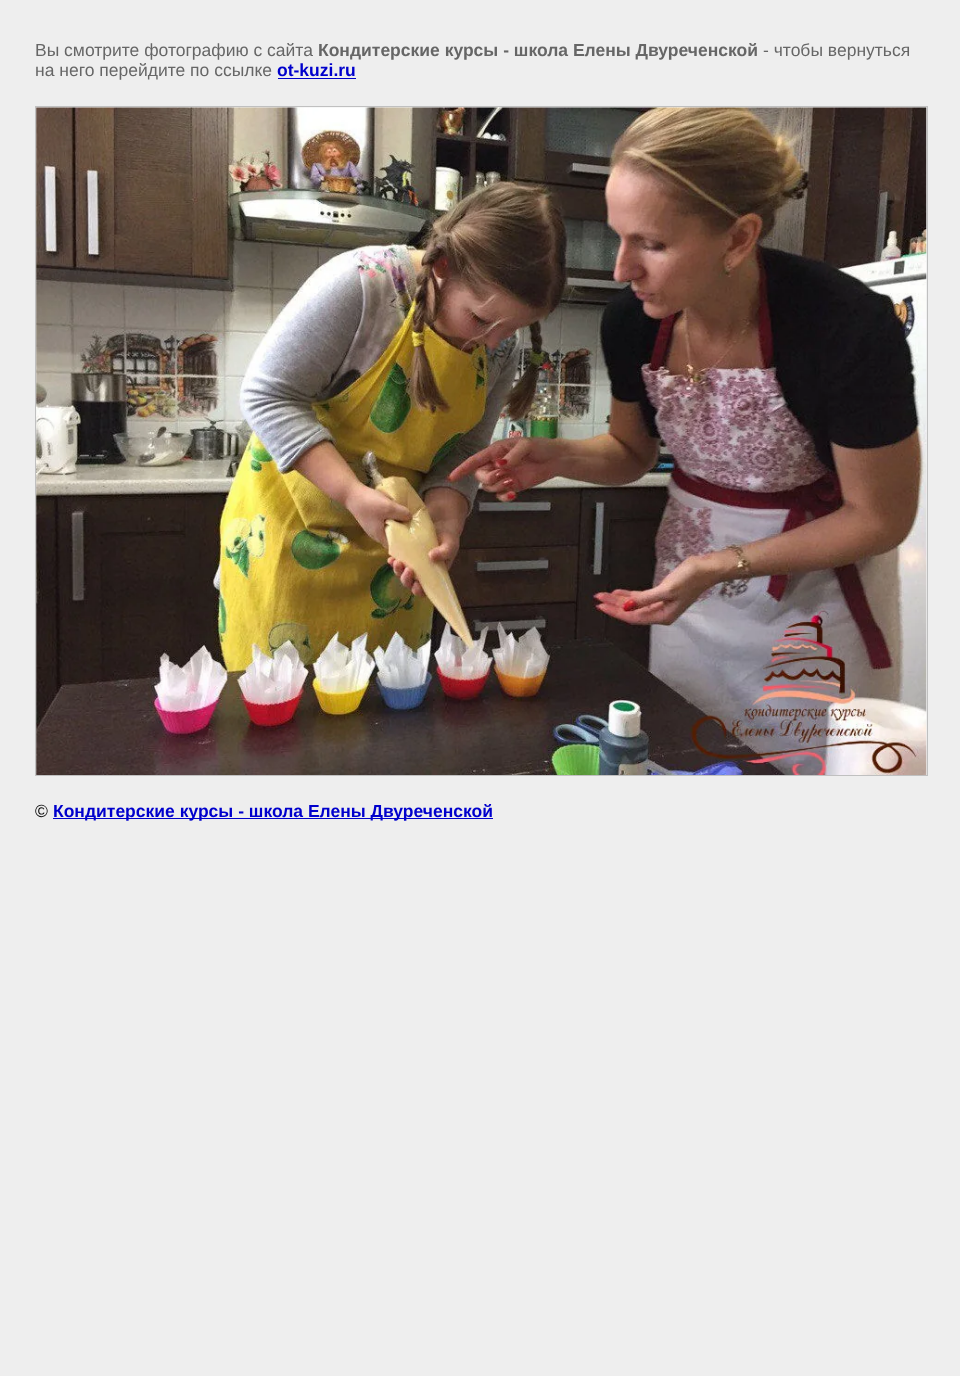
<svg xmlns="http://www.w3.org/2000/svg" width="960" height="1376">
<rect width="100%" height="100%" fill="#eee"/>
<text x="35" y="56" style="font-family:Liberation Sans;font-size:17.5px;fill:#666">Вы смотрите фотографию с сайта</text>
<text x="318" y="56" style="font-family:Liberation Sans;font-size:17.5px;font-weight:bold;fill:#666">Кондитерские курсы - школа Елены Двуреченской</text>
<text x="763" y="56" style="font-family:Liberation Sans;font-size:17.5px;fill:#666">- чтобы вернуться</text>
<text x="35" y="76" style="font-family:Liberation Sans;font-size:17.5px;fill:#666">на него перейдите по ссылке</text>
<text x="277" y="76" style="font-family:Liberation Sans;font-size:17.5px;font-weight:bold;fill:#00c">ot-kuzi.ru</text>
<rect x="278" y="78" width="78" height="1" fill="#00c"/>
<rect x="35.5" y="106.5" width="892" height="669" fill="none" stroke="#c0c0c0"/>
<image x="36" y="107" width="891" height="668" href="media/1.png"/>
<text x="35" y="817" style="font-family:Liberation Sans;font-size:17.5px;fill:#000">©</text>
<rect x="53" y="818" width="440" height="1" fill="#00c"/>
<text x="53" y="817" style="font-family:Liberation Sans;font-size:17.5px;font-weight:bold;fill:#00c">Кондитерские курсы - школа Елены Двуреченской</text>
</svg>
